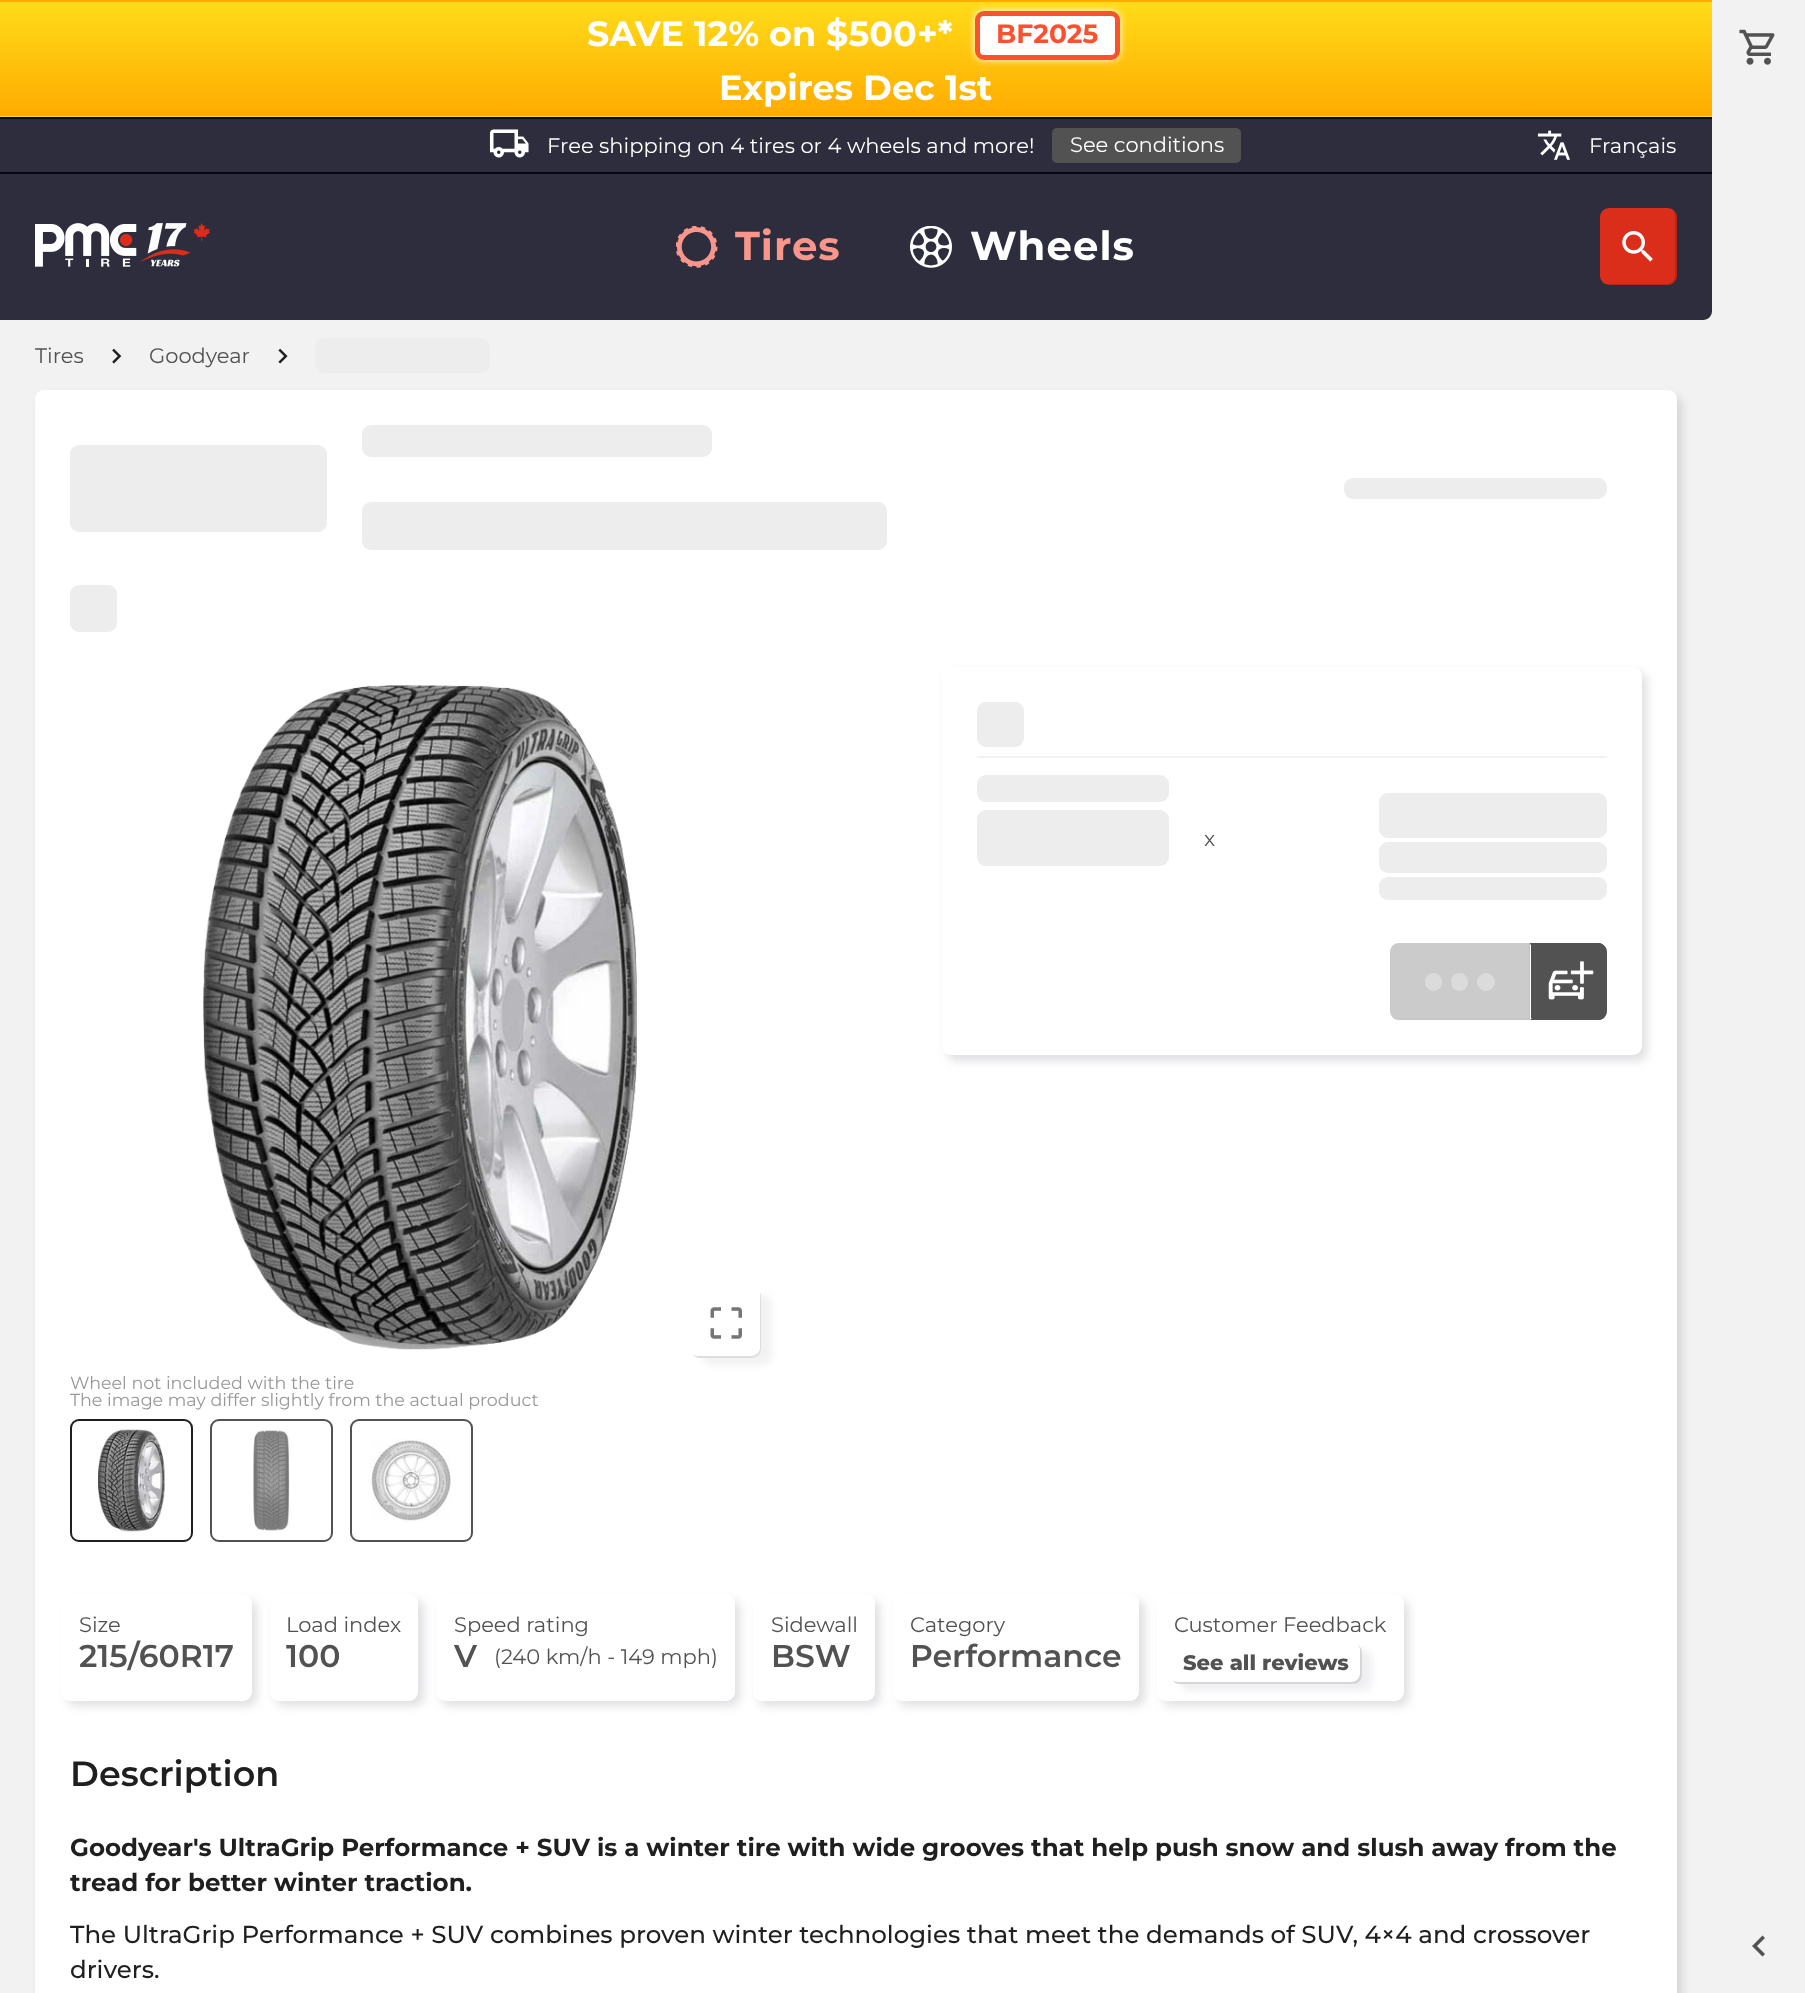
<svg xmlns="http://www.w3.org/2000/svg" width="1805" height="1993">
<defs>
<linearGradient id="g1" gradientUnits="userSpaceOnUse" x1="856" y1="-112" x2="856" y2="1.8"><stop offset="0" stop-color="#ffdc1a"/><stop offset="1" stop-color="#ffab00"/></linearGradient>
<linearGradient id="g2" gradientUnits="userSpaceOnUse" x1="856" y1="1.7" x2="856" y2="116"><stop offset="0" stop-color="#ffdc1a"/><stop offset="1" stop-color="#ffab00"/></linearGradient>
</defs>
<rect width="100%" height="100%" fill="#fff"/>
<rect width="1712" height="2" fill="url(#g1)"/>
<rect y="2" width="1712" height="114" fill="url(#g2)"/>
<rect y="116" width="1712" height="1" fill="#ffdc1a"/>
<text x="587" y="46" style="font-family:Montserrat;font-size:35px;font-weight:bold;fill:#fff">SAVE 12% on $500+*</text>
<rect x="975" y="11" width="145" height="49" rx="9" fill="#fff" filter="blur(3.5px)"/>
<rect x="977.5" y="13.5" width="140" height="44" rx="6.5" fill="#fff" stroke="#f8522e" stroke-width="5"/>
<text x="996" y="43" style="font-family:Montserrat;font-size:26.5px;font-weight:bold;fill:#f8522e">BF2025</text>
<text x="719" y="100" style="font-family:Montserrat;font-size:35px;font-weight:bold;fill:#fff">Expires Dec 1st</text>
<rect x="1703" y="311" width="9" height="9" fill="#f2f2f2"/>
<path d="M0 117h1712v194c0 5-4 9-9 9h-1703z" fill="#2d2d3d"/>
<rect y="117" width="1712" height="2" fill="#050516"/>
<rect y="172" width="1712" height="2" fill="#050516"/>
<image x="489" y="129" width="40" height="29" href="media/1.png"/>
<text x="547" y="153" style="font-family:Montserrat;font-size:21px;fill:#fff">Free shipping on 4 tires or 4 wheels and more!</text>
<rect x="1052" y="128" width="189" height="35" rx="5" fill="#525252"/>
<text x="1070" y="152" style="font-family:Montserrat;font-size:21px;fill:#fff">See conditions</text>
<image x="1537" y="130" width="33" height="30" href="media/2.png"/>
<text x="1589" y="153" style="font-family:Montserrat;font-size:21px;fill:#fff">Français</text>
<image x="35" y="223" width="175" height="44" href="media/3.png"/>
<image x="676" y="226" width="42" height="42" href="media/4.png"/>
<text x="735" y="260" style="font-family:Montserrat;font-size:40.25px;font-weight:bold;letter-spacing:1px;fill:#f8968c">Tires</text>
<image x="910" y="226" width="42" height="42" href="media/5.png"/>
<text x="970" y="260" style="font-family:Montserrat;font-size:40.25px;font-weight:bold;letter-spacing:1px;fill:#fff">Wheels</text>
<rect x="1600" y="208" width="77" height="77" rx="9" fill="#da2e1b"/>
<path d="M1605 284c1 1 2 1 4 1h59c5 0 9-4 9-9v-59c0-3-1-6-4-7c3 4 2 11 2 15v40c0 7 2 17-7 19z" fill="#00000029"/>
<image x="1622" y="231" width="31" height="31" href="media/6.png"/>
<rect y="320" width="1712" height="1673" fill="#f2f2f2"/>
<text x="35" y="363" style="font-family:Montserrat;font-size:21px;fill:#525252">Tires</text>
<image x="112" y="348" width="10" height="16" href="media/7.png"/>
<text x="149" y="363" style="font-family:Montserrat;font-size:21px;fill:#525252">Goodyear</text>
<image x="278" y="348" width="10" height="16" href="media/8.png"/>
<rect x="315" y="338" width="175" height="35" rx="9" fill="#ededed"/>
<rect x="40" y="396" width="1642" height="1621" rx="9" fill="#64657233" filter="blur(5px)"/>
<path d="M44 390h1624c5 0 9 4 9 9v1594h-1642v-1594c0-5 4-9 9-9z" fill="#fff"/>
<rect x="70" y="445" width="257" height="87" rx="9" fill="#ededed"/>
<rect x="362" y="425" width="350" height="32" rx="9" fill="#ededed"/>
<rect x="362" y="502" width="525" height="48" rx="9" fill="#ededed"/>
<rect x="1344" y="478" width="263" height="21" rx="9" fill="#ededed"/>
<rect x="70" y="585" width="47" height="47" rx="9" fill="#ededed"/>
<rect x="947" y="672" width="700" height="389" rx="9" fill="#64657233" filter="blur(5px)"/>
<rect x="942" y="667" width="700" height="388" rx="9" fill="#fff"/>
<rect x="977" y="702" width="47" height="45" rx="9" fill="#ededed"/>
<rect x="977" y="756" width="630" height="2" fill="#f2f2f2"/>
<rect x="977" y="775" width="192" height="27" rx="9" fill="#ededed"/>
<rect x="977" y="810" width="192" height="56" rx="9" fill="#ededed"/>
<text x="1204" y="846" style="font-family:Montserrat;font-size:21px;fill:#525252">x</text>
<rect x="1379" y="793" width="228" height="45" rx="9" fill="#ededed"/>
<rect x="1379" y="842" width="228" height="31" rx="9" fill="#ededed"/>
<rect x="1379" y="877" width="228" height="23" rx="9" fill="#ededed"/>
<path d="M1399 943h131v77h-131c-5 0-9-4-9-9v-59c0-5 4-9 9-9z" fill="#cbcbcb"/>
<path d="M1392 1017c2 2 4 3 7 3h131v-77h-2v75h-132z" fill="#b3b3b329"/>
<rect x="1451" y="973" width="17" height="18" rx="8.5" fill="#dbdbdb"/>
<rect x="1425" y="973" width="17" height="18" rx="8.5" fill="#dbdbdb"/>
<circle cx="1486" cy="982" r="9" fill="#dbdbdb"/>
<path d="M1530 943h68c5 0 9 4 9 9v59c0 5-4 9-9 9h-68z" fill="#525252"/>
<path d="M1530 944v-1h70c2 1 3 2 4 3l-1 1c-1-1-3-2-5-2h-67z" fill="#525252"/>
<path d="M1604 946c1 1 2 4 2 6v60c0 2-1 4-2 6l-1-2c1-1 2-2 2-4v-60c0-2-1-4-2-5z" fill="#525252"/>
<path d="M1604 1018c-2 1-4 2-6 2h-68l2-2h66c2 0 3-1 5-2z" fill="#525252"/>
<path d="M1531 945v73h1l-2 2v-76z" fill="#fff"/>
<image x="1548" y="961" width="46" height="39" href="media/9.png"/>
<image x="203" y="685" width="434" height="665" href="media/10.png"/>
<rect x="702" y="1295" width="70" height="70" rx="9" fill="#83848e1a" filter="blur(3.5px)"/>
<rect x="691" y="1288" width="70" height="70" rx="9" fill="#fff"/>
<path d="M692 1354c2 2 5 4 8 4h52c5 0 9-4 9-9v-52c0-2-1-4-1-5v3v53c0 4-4 8-9 8h-53c-2 0-4-1-6-2z" fill="#dedede"/>
<image x="710" y="1307" width="32" height="32" href="media/11.png"/>
<text x="70" y="1389" style="font-family:Montserrat;font-size:17.5px;fill:#979797">Wheel not included with the tire</text>
<text x="70" y="1406" style="font-family:Montserrat;font-size:17.5px;fill:#979797">The image may differ slightly from the actual product</text>
<rect x="71" y="1420" width="121" height="121" rx="8" fill="none" stroke="#1f1f1f" stroke-width="2"/>
<image x="98" y="1429" width="67" height="103" href="media/12.png"/>
<rect x="211" y="1420" width="121" height="121" rx="8" fill="none" stroke="#525252" stroke-width="2"/>
<image x="253" y="1430" width="38" height="101" href="media/13.png"/>
<rect x="351" y="1420" width="121" height="121" rx="8" fill="none" stroke="#525252" stroke-width="2"/>
<image x="371" y="1438" width="80" height="84" href="media/14.png"/>
<rect x="67" y="1600" width="190" height="106" rx="9" fill="#64657233" filter="blur(5px)"/>
<rect x="61" y="1594" width="191" height="107" rx="9" fill="#fff"/>
<text x="79" y="1632" style="font-family:Montserrat;font-size:21px;fill:#525252">Size</text>
<text x="79" y="1667" style="font-family:Montserrat;font-size:31.5px;font-weight:600;fill:#525252">215/60R17</text>
<rect x="275" y="1600" width="149" height="106" rx="9" fill="#64657233" filter="blur(5px)"/>
<rect x="270" y="1594" width="148" height="107" rx="9" fill="#fff"/>
<text x="286" y="1632" style="font-family:Montserrat;font-size:21px;fill:#525252">Load index</text>
<text x="286" y="1667" style="font-family:Montserrat;font-size:31.5px;font-weight:600;fill:#525252">100</text>
<rect x="441" y="1600" width="299" height="106" rx="9" fill="#64657233" filter="blur(5px)"/>
<rect x="436" y="1594" width="299" height="107" rx="9" fill="#fff"/>
<text x="454" y="1632" style="font-family:Montserrat;font-size:21px;fill:#525252">Speed rating</text>
<text x="454" y="1667" style="font-family:Montserrat;font-size:31.5px;font-weight:600;fill:#525252">V</text>
<text x="494" y="1664" style="font-family:Montserrat;font-size:21px;fill:#525252">(240 km/h - 149 mph)</text>
<rect x="758" y="1600" width="122" height="106" rx="9" fill="#64657233" filter="blur(5px)"/>
<rect x="753" y="1594" width="122" height="107" rx="9" fill="#fff"/>
<text x="771" y="1632" style="font-family:Montserrat;font-size:21px;fill:#525252">Sidewall</text>
<text x="771" y="1667" style="font-family:Montserrat;font-size:31.5px;font-weight:600;fill:#525252">BSW</text>
<rect x="898" y="1600" width="247" height="106" rx="9" fill="#64657233" filter="blur(5px)"/>
<rect x="893" y="1594" width="246" height="107" rx="9" fill="#fff"/>
<text x="910" y="1632" style="font-family:Montserrat;font-size:21px;fill:#525252">Category</text>
<text x="910" y="1667" style="font-family:Montserrat;font-size:31.5px;font-weight:600;fill:#525252">Performance</text>
<rect x="1162" y="1600" width="247" height="106" rx="9" fill="#64657233" filter="blur(5px)"/>
<rect x="1157" y="1594" width="247" height="107" rx="9" fill="#fff"/>
<text x="1174" y="1632" style="font-family:Montserrat;font-size:21px;fill:#525252">Customer Feedback</text>
<rect x="1181" y="1650" width="191" height="41" rx="9" fill="#6465721a" filter="blur(3.5px)"/>
<rect x="1171" y="1643" width="191" height="41" rx="9" fill="#fff"/>
<path d="M1173 1680c1 3 4 4 7 4h173c5 0 9-4 9-9v-23c0-3-2-6-5-8c2 2 3 4 3 6v23c0 5-4 9-9 9h-173c-2 0-4-1-5-2z" fill="#00000029"/>
<text x="1183" y="1670" style="font-family:Montserrat;font-size:21px;font-weight:800;fill:#525252">See all reviews</text>
<text x="70" y="1786" style="font-family:Montserrat;font-size:35px;font-weight:600;fill:#1f1f1f">Description</text>
<text x="70" y="1856" style="font-family:Montserrat;font-size:24.5px;font-weight:bold;fill:#1f1f1f">Goodyear's UltraGrip Performance + SUV is a winter tire with wide grooves that help push snow and slush away from the</text>
<text x="70" y="1891" style="font-family:Montserrat;font-size:24.5px;font-weight:bold;fill:#1f1f1f">tread for better winter traction.</text>
<text x="70" y="1943" style="font-family:Montserrat;font-size:24.5px;font-weight:500;fill:#1f1f1f">The UltraGrip Performance + SUV combines proven winter technologies that meet the demands of SUV, 4×4 and crossover</text>
<text x="70" y="1978" style="font-family:Montserrat;font-size:24.5px;font-weight:500;fill:#1f1f1f">drivers.</text>
<rect x="1712" width="93" height="1993" fill="#f2f2f2"/>
<image x="1739" y="29" width="36" height="36" href="media/15.png"/>
<path d="M1765 1938l-2.5-2.5l-10.5 10.5l10.5 10.5l2.5-2.5l-8-8z" fill="#525252"/>
</svg>
